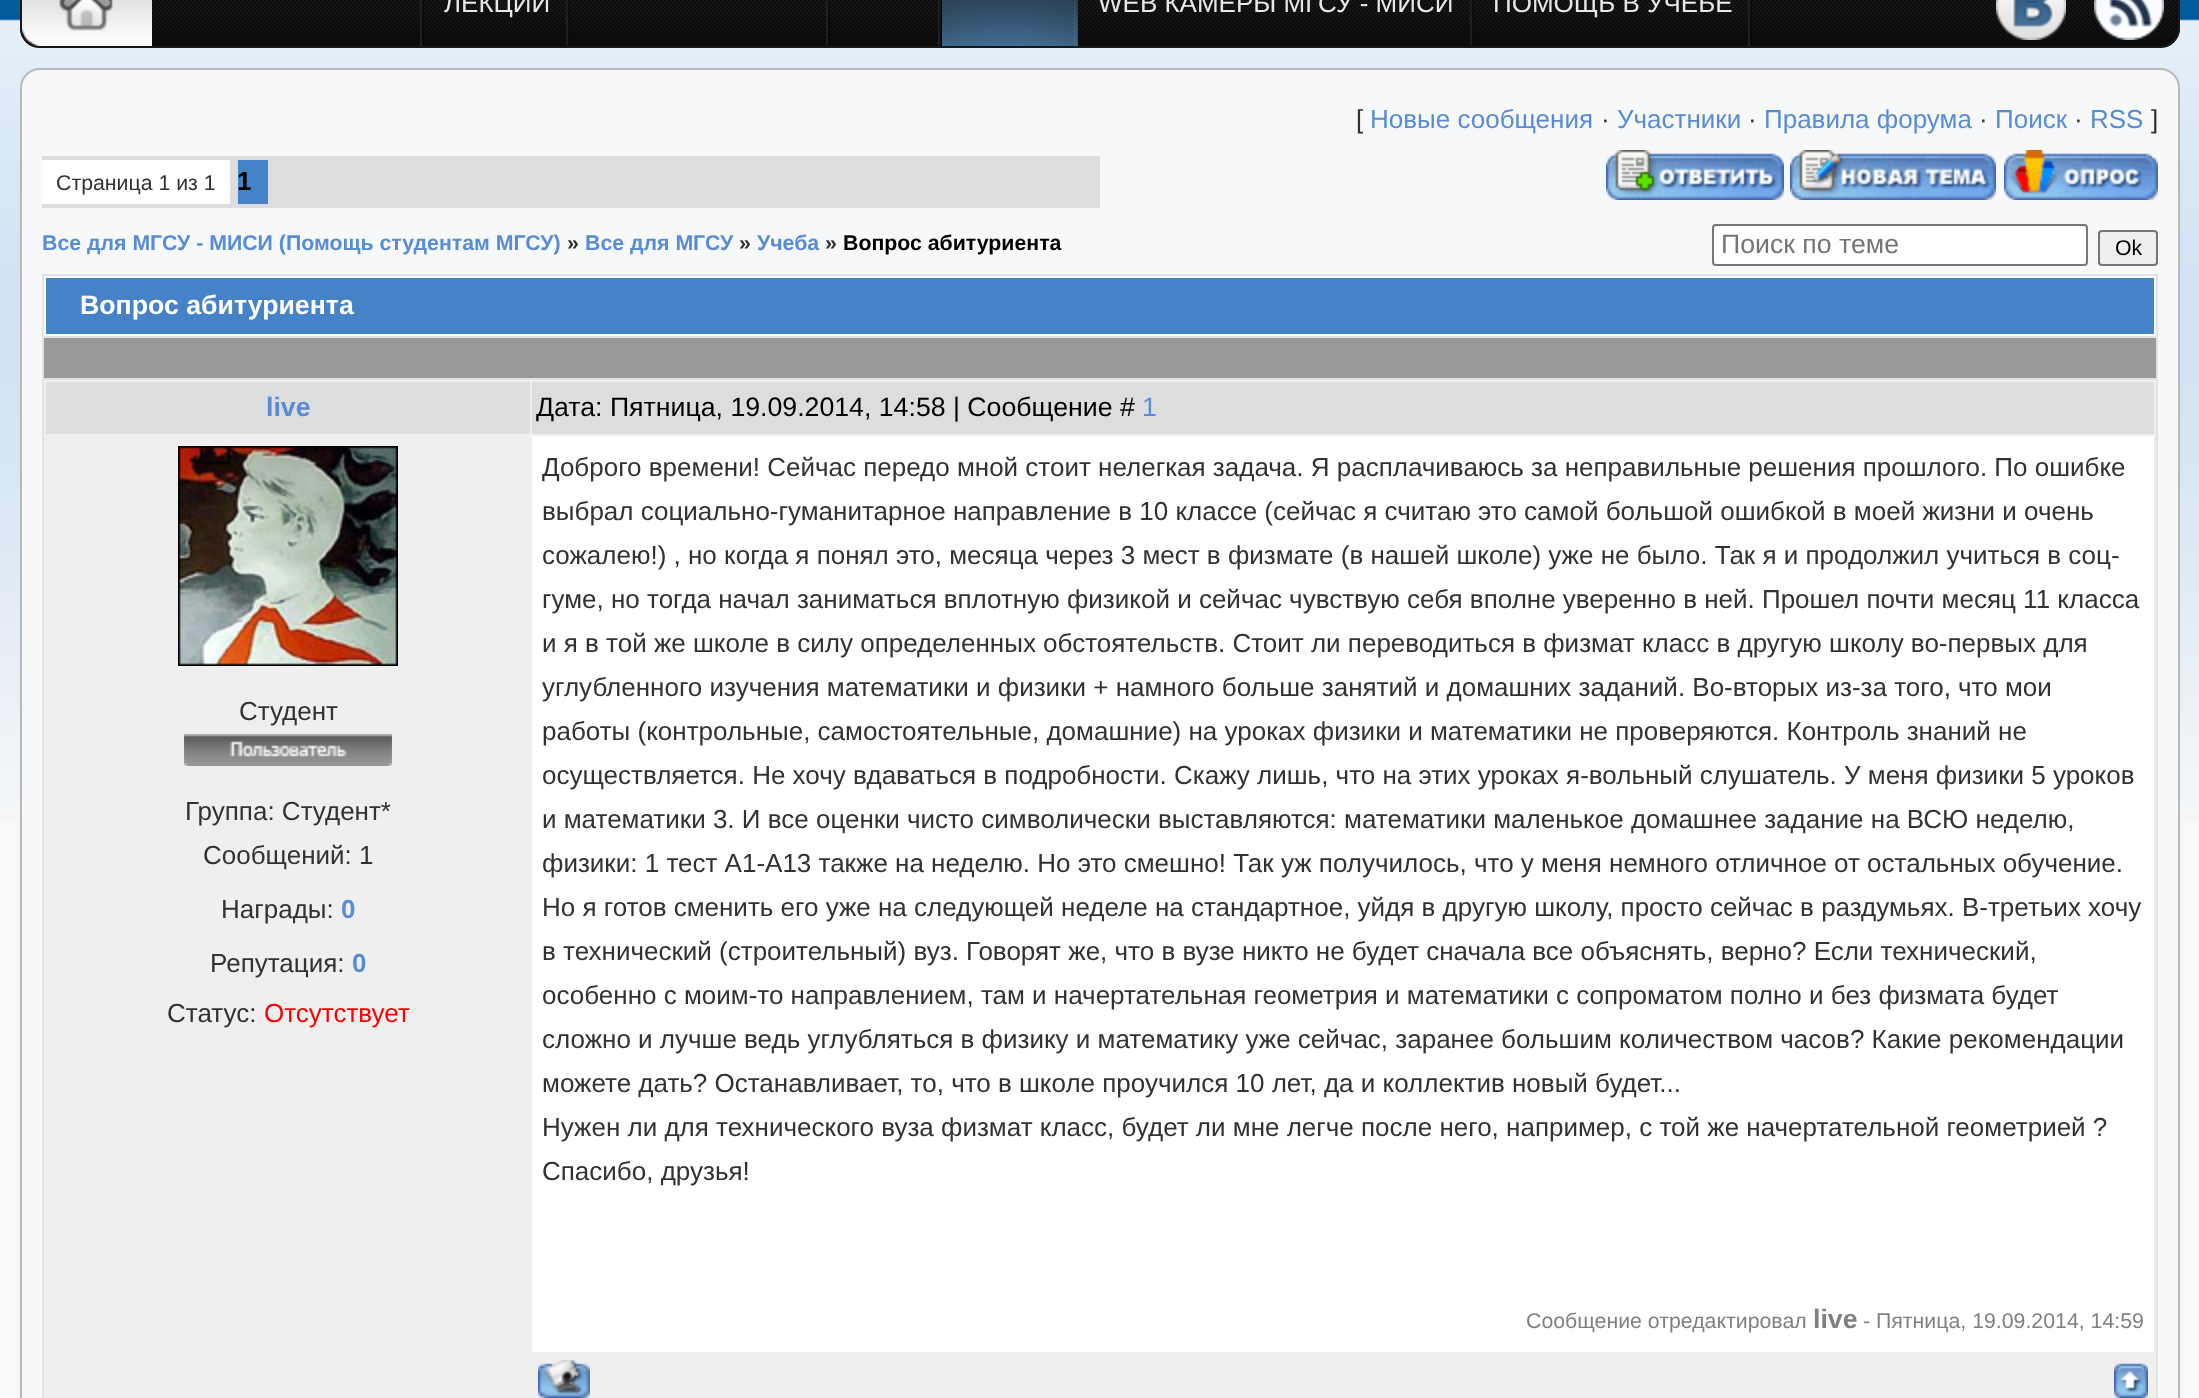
<svg xmlns="http://www.w3.org/2000/svg" width="2199" height="1398">
<rect width="100%" height="100%" fill="#f9f9f9"/>
<image x="0" y="0" width="2199" height="819" href="media/1.png"/>
<image x="20" y="0" width="2160" height="46" href="media/2.png"/>
<rect x="21" y="-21" width="2158" height="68" rx="19" fill="none" stroke="#171717" stroke-width="2"/>
<image x="22" y="0" width="130" height="46" href="media/3.png"/>
<image x="420" y="0" width="4" height="46" href="media/4.png"/>
<image x="566" y="0" width="4" height="46" href="media/5.png"/>
<text x="444" y="12" style="font-family:Liberation Sans;font-size:26px;fill:#e8e8e8">ЛЕКЦИИ</text>
<image x="826" y="0" width="4" height="46" href="media/5.png"/>
<image x="938" y="0" width="4" height="46" href="media/5.png"/>
<image x="1074" y="0" width="4" height="46" href="media/5.png"/>
<image x="942" y="0" width="136" height="46" href="media/6.png"/>
<image x="1470" y="0" width="4" height="46" href="media/5.png"/>
<text x="1098" y="12" style="font-family:Liberation Sans;font-size:26px;fill:#e8e8e8">WEB КАМЕРЫ МГСУ - МИСИ</text>
<image x="1748" y="0" width="4" height="46" href="media/4.png"/>
<text x="1493" y="12" style="font-family:Liberation Sans;font-size:26px;fill:#e8e8e8">ПОМОЩЬ В УЧЁБЕ</text>
<image x="1996" y="0" width="70" height="40" href="media/7.png"/>
<image x="2094" y="0" width="70" height="40" href="media/8.png"/>
<rect x="21" y="69" width="2158" height="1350" rx="19" fill="#f6f8fa" stroke="#b9b9b9" stroke-width="2"/>
<text x="1356" y="128" style="font-family:Liberation Sans;font-size:26px;fill:#323232">[</text>
<text x="1370" y="128" style="font-family:Liberation Sans;font-size:26px;fill:#588cd4">Новые сообщения</text>
<text x="1601" y="128" style="font-family:Liberation Sans;font-size:26px;fill:#323232">·</text>
<text x="1617" y="128" style="font-family:Liberation Sans;font-size:26px;fill:#588cd4">Участники</text>
<text x="1748" y="128" style="font-family:Liberation Sans;font-size:26px;fill:#323232">·</text>
<text x="1764" y="128" style="font-family:Liberation Sans;font-size:26px;fill:#588cd4">Правила форума</text>
<text x="1979" y="128" style="font-family:Liberation Sans;font-size:26px;fill:#323232">·</text>
<text x="1995" y="128" style="font-family:Liberation Sans;font-size:26px;fill:#588cd4">Поиск</text>
<text x="2074" y="128" style="font-family:Liberation Sans;font-size:26px;fill:#323232">·</text>
<text x="2090" y="128" style="font-family:Liberation Sans;font-size:26px;fill:#588cd4">RSS</text>
<text x="2151" y="128" style="font-family:Liberation Sans;font-size:26px;fill:#323232">]</text>
<rect x="42" y="156" width="1058" height="52" fill="#ddd"/>
<rect x="42" y="160" width="188" height="44" fill="#fff"/>
<text x="56" y="190" style="font-family:Liberation Sans;font-size:21.3px;fill:#323232">Страница 1 из 1</text>
<rect x="238" y="160" width="30" height="44" fill="#4682c8"/>
<text x="237" y="190" style="font-family:Liberation Sans;font-size:26px;font-weight:bold;fill:#000">1</text>
<image x="1606" y="150" width="178" height="50" href="media/9.png"/>
<image x="1790" y="150" width="206" height="50" href="media/10.png"/>
<image x="2004" y="150" width="154" height="50" href="media/11.png"/>
<text x="42" y="250" style="font-family:Liberation Sans;font-size:21.3px;font-weight:bold;fill:#588cd4">Все для МГСУ - МИСИ (Помощь студентам МГСУ)</text>
<text x="567" y="250" style="font-family:Liberation Sans;font-size:21.3px;font-weight:bold;fill:#323232">»</text>
<text x="585" y="250" style="font-family:Liberation Sans;font-size:21.3px;font-weight:bold;fill:#588cd4">Все для МГСУ</text>
<text x="739" y="250" style="font-family:Liberation Sans;font-size:21.3px;font-weight:bold;fill:#323232">»</text>
<text x="757" y="250" style="font-family:Liberation Sans;font-size:21.3px;font-weight:bold;fill:#588cd4">Учеба</text>
<text x="825" y="250" style="font-family:Liberation Sans;font-size:21.3px;font-weight:bold;fill:#323232">»</text>
<text x="843" y="250" style="font-family:Liberation Sans;font-size:21.3px;font-weight:bold;fill:#000">Вопрос абитуриента</text>
<rect x="1713" y="225" width="374" height="40" rx="3" fill="#fff" stroke="#767676" stroke-width="2"/>
<text x="1721" y="253" style="font-family:Liberation Sans;font-size:26.7px;fill:#757575">Поиск по теме</text>
<rect x="2099" y="231" width="58" height="34" rx="3" fill="#efefef" stroke="#767676" stroke-width="2"/>
<text x="2115" y="255" style="font-family:Liberation Sans;font-size:21.3px;fill:#000">Ok</text>
<rect x="42" y="274" width="2116" height="1124" fill="#e3e3e3"/>
<rect x="45" y="277" width="2110" height="58" fill="#4682c8" stroke="#fff" stroke-width="2"/>
<text x="80" y="314" style="font-family:Liberation Sans;font-size:26.7px;font-weight:bold;fill:#fff">Вопрос абитуриента</text>
<rect x="44" y="338" width="2112" height="40" fill="#999"/>
<rect x="44" y="380" width="2112" height="1018" fill="#efefef"/>
<rect x="46" y="382" width="484" height="52" fill="#ddd"/>
<text x="266" y="416" style="font-family:Liberation Sans;font-size:26.7px;font-weight:bold;fill:#588cd4">live</text>
<rect x="532" y="382" width="1622" height="52" fill="#ddd"/>
<text x="536" y="416" style="font-family:Liberation Sans;font-size:26.7px;fill:#000">Дата: Пятница, 19.09.2014, 14:58 | Сообщение #</text>
<text x="1142" y="416" style="font-family:Liberation Sans;font-size:26.7px;fill:#588cd4">1</text>
<image x="178" y="446" width="220" height="220" href="media/12.png"/>
<text x="239" y="720" style="font-family:Liberation Sans;font-size:26px;fill:#323232">Студент</text>
<image x="184" y="734" width="208" height="32" href="media/13.png"/>
<text x="185" y="820" style="font-family:Liberation Sans;font-size:26px;fill:#323232">Группа: Студент*</text>
<text x="203" y="864" style="font-family:Liberation Sans;font-size:26px;fill:#323232">Сообщений: 1</text>
<text x="221" y="918" style="font-family:Liberation Sans;font-size:26px;fill:#323232">Награды:</text>
<text x="341" y="918" style="font-family:Liberation Sans;font-size:26px;font-weight:bold;fill:#588cd4">0</text>
<text x="210" y="972" style="font-family:Liberation Sans;font-size:26px;fill:#323232">Репутация:</text>
<text x="352" y="972" style="font-family:Liberation Sans;font-size:26px;font-weight:bold;fill:#588cd4">0</text>
<text x="167" y="1022" style="font-family:Liberation Sans;font-size:26px;fill:#323232">Статус:</text>
<text x="264" y="1022" style="font-family:Liberation Sans;font-size:26px;fill:#f00">Отсутствует</text>
<rect x="532" y="436" width="1622" height="916" fill="#fff"/>
<text x="542" y="476" style="font-family:Liberation Sans;font-size:26px;fill:#323232">Доброго времени! Сейчас передо мной стоит нелегкая задача. Я расплачиваюсь за неправильные решения прошлого. По ошибке</text>
<text x="542" y="520" style="font-family:Liberation Sans;font-size:26px;fill:#323232">выбрал социально-гуманитарное направление в 10 классе (сейчас я считаю это самой большой ошибкой в моей жизни и очень</text>
<text x="542" y="564" style="font-family:Liberation Sans;font-size:26px;fill:#323232">сожалею!) , но когда я понял это, месяца через 3 мест в физмате (в нашей школе) уже не было. Так я и продолжил учиться в соц-</text>
<text x="542" y="608" style="font-family:Liberation Sans;font-size:26px;fill:#323232">гуме, но тогда начал заниматься вплотную физикой и сейчас чувствую себя вполне уверенно в ней. Прошел почти месяц 11 класса</text>
<text x="542" y="652" style="font-family:Liberation Sans;font-size:26px;fill:#323232">и я в той же школе в силу определенных обстоятельств. Стоит ли переводиться в физмат класс в другую школу во-первых для</text>
<text x="542" y="696" style="font-family:Liberation Sans;font-size:26px;fill:#323232">углубленного изучения математики и физики + намного больше занятий и домашних заданий. Во-вторых из-за того, что мои</text>
<text x="542" y="740" style="font-family:Liberation Sans;font-size:26px;fill:#323232">работы (контрольные, самостоятельные, домашние) на уроках физики и математики не проверяются. Контроль знаний не</text>
<text x="542" y="784" style="font-family:Liberation Sans;font-size:26px;fill:#323232">осуществляется. Не хочу вдаваться в подробности. Скажу лишь, что на этих уроках я-вольный слушатель. У меня физики 5 уроков</text>
<text x="542" y="828" style="font-family:Liberation Sans;font-size:26px;fill:#323232">и математики 3. И все оценки чисто символически выставляются: математики маленькое домашнее задание на ВСЮ неделю,</text>
<text x="542" y="872" style="font-family:Liberation Sans;font-size:26px;fill:#323232">физики: 1 тест A1-A13 также на неделю. Но это смешно! Так уж получилось, что у меня немного отличное от остальных обучение.</text>
<text x="542" y="916" style="font-family:Liberation Sans;font-size:26px;fill:#323232">Но я готов сменить его уже на следующей неделе на стандартное, уйдя в другую школу, просто сейчас в раздумьях. В-третьих хочу</text>
<text x="542" y="960" style="font-family:Liberation Sans;font-size:26px;fill:#323232">в технический (строительный) вуз. Говорят же, что в вузе никто не будет сначала все объяснять, верно? Если технический,</text>
<text x="542" y="1004" style="font-family:Liberation Sans;font-size:26px;fill:#323232">особенно с моим-то направлением, там и начертательная геометрия и математики с сопроматом полно и без физмата будет</text>
<text x="542" y="1048" style="font-family:Liberation Sans;font-size:26px;fill:#323232">сложно и лучше ведь углубляться в физику и математику уже сейчас, заранее большим количеством часов? Какие рекомендации</text>
<text x="542" y="1092" style="font-family:Liberation Sans;font-size:26px;fill:#323232">можете дать? Останавливает, то, что в школе проучился 10 лет, да и коллектив новый будет...</text>
<text x="542" y="1136" style="font-family:Liberation Sans;font-size:26px;fill:#323232">Нужен ли для технического вуза физмат класс, будет ли мне легче после него, например, с той же начертательной геометрией ?</text>
<text x="542" y="1180" style="font-family:Liberation Sans;font-size:26px;fill:#323232">Спасибо, друзья!</text>
<text x="1526" y="1328" style="font-family:Liberation Sans;font-size:21.3px;fill:#808080">Сообщение отредактировал</text>
<text x="1813" y="1328" style="font-family:Liberation Sans;font-size:26.7px;font-weight:bold;fill:#808080">live</text>
<text x="1863" y="1328" style="font-family:Liberation Sans;font-size:21.3px;fill:#808080">- Пятница, 19.09.2014, 14:59</text>
<image x="538" y="1360" width="52" height="38" href="media/14.png"/>
<image x="2114" y="1363" width="34" height="35" href="media/15.png"/>
</svg>
